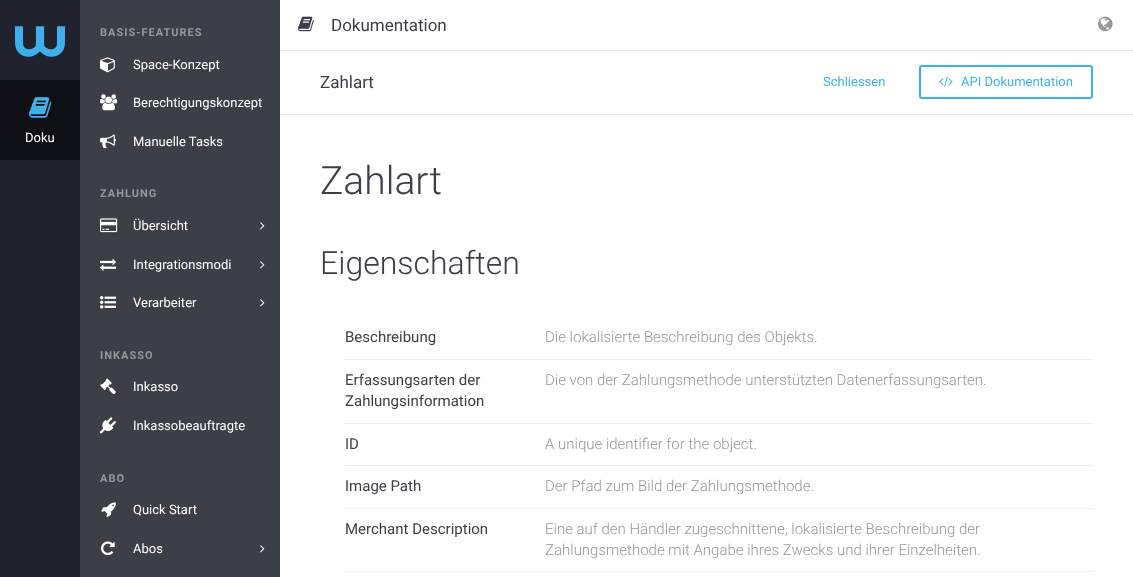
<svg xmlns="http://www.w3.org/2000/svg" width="1133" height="577">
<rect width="100%" height="100%" fill="#fff"/>
<rect x="80" width="200" height="577" fill="#3d3f46"/>
<rect width="80" height="577" fill="#20232d"/>
<image x="15" y="26" width="50" height="31" href="media/1.png"/>
<rect y="80" width="80" height="80" fill="#0f1015"/>
<image x="29" y="97" width="23" height="21" href="media/2.png"/>
<text x="25" y="142" style="font-family:Roboto;font-size:13px;fill:#fff">Doku</text>
<text x="100" y="36" style="font-family:Roboto;font-size:11px;font-weight:bold;letter-spacing:1px;fill:#979797">BASIS-FEATURES</text>
<image x="100" y="57" width="15" height="16" href="media/3.png"/>
<text x="133" y="69" style="font-family:Roboto;font-size:13px;fill:#fff">Space-Konzept</text>
<image x="100" y="94" width="18" height="17" href="media/4.png"/>
<text x="133" y="107" style="font-family:Roboto;font-size:13px;fill:#fff">Berechtigungskonzept</text>
<image x="100" y="134" width="16" height="15" href="media/5.png"/>
<text x="133" y="146" style="font-family:Roboto;font-size:13px;fill:#fff">Manuelle Tasks</text>
<text x="100" y="197" style="font-family:Roboto;font-size:11px;font-weight:bold;letter-spacing:1px;fill:#979797">ZAHLUNG</text>
<image x="100" y="218" width="18" height="15" href="media/6.png"/>
<text x="133" y="230" style="font-family:Roboto;font-size:13px;fill:#fff">Übersicht</text>
<image x="260" y="222" width="5" height="8" href="media/7.png"/>
<image x="100" y="258" width="16" height="13" href="media/8.png"/>
<text x="133" y="269" style="font-family:Roboto;font-size:13px;fill:#fff">Integrationsmodi</text>
<image x="260" y="261" width="5" height="8" href="media/7.png"/>
<image x="100" y="296" width="16" height="13" href="media/9.png"/>
<text x="133" y="307" style="font-family:Roboto;font-size:13px;fill:#fff">Verarbeiter</text>
<image x="260" y="299" width="5" height="8" href="media/7.png"/>
<text x="100" y="359" style="font-family:Roboto;font-size:11px;font-weight:bold;letter-spacing:1px;fill:#979797">INKASSO</text>
<image x="100" y="378" width="16" height="17" href="media/10.png"/>
<text x="133" y="391" style="font-family:Roboto;font-size:13px;fill:#fff">Inkasso</text>
<image x="100" y="417" width="16" height="17" href="media/11.png"/>
<text x="133" y="430" style="font-family:Roboto;font-size:13px;fill:#fff">Inkassobeauftragte</text>
<text x="100" y="482" style="font-family:Roboto;font-size:11px;font-weight:bold;letter-spacing:1px;fill:#979797">ABO</text>
<image x="101" y="502" width="15" height="15" href="media/12.png"/>
<text x="133" y="514" style="font-family:Roboto;font-size:13px;fill:#fff">Quick Start</text>
<image x="101" y="541" width="14" height="15" href="media/13.png"/>
<text x="133" y="553" style="font-family:Roboto;font-size:13px;fill:#fff">Abos</text>
<image x="260" y="545" width="5" height="8" href="media/7.png"/>
<rect x="280" y="50" width="853" height="1" fill="#eaeaea"/>
<image x="298" y="16" width="16" height="16" href="media/14.png"/>
<text x="331" y="31" style="font-family:Roboto;font-size:17px;fill:#3d3f46">Dokumentation</text>
<image x="1098" y="16" width="15" height="16" href="media/15.png"/>
<rect x="280" y="114" width="853" height="1" fill="#eaeaea"/>
<text x="320" y="88" style="font-family:Roboto;font-size:17px;fill:#3d3f46">Zahlart</text>
<text x="823" y="86" style="font-family:Roboto;font-size:13px;fill:#3eb0eb">Schliessen</text>
<rect x="920" y="66" width="172" height="32" rx="2" fill="none" stroke="#3eb0eb" stroke-width="2"/>
<image x="939" y="76" width="14" height="11" href="media/16.png"/>
<text x="961" y="86" style="font-family:Roboto;font-size:13px;fill:#3eb0eb">API Dokumentation</text>
<text x="320" y="194" style="font-family:Roboto;font-size:39px;font-weight:300;fill:#3d3f46">Zahlart</text>
<text x="320" y="274" style="font-family:Roboto;font-size:32px;font-weight:300;fill:#3d3f46">Eigenschaften</text>
<text x="345" y="342" style="font-family:Roboto;font-size:15px;fill:#3d3f46">Beschreibung</text>
<text x="545" y="342" style="font-family:Roboto;font-size:15px;font-weight:300;fill:#979797">Die lokalisierte Beschreibung des Objekts.</text>
<rect x="345" y="359" width="748" height="1" fill="#eee"/>
<text x="345" y="385" style="font-family:Roboto;font-size:15px;fill:#3d3f46">Erfassungsarten der</text>
<text x="345" y="406" style="font-family:Roboto;font-size:15px;fill:#3d3f46">Zahlungsinformation</text>
<text x="545" y="385" style="font-family:Roboto;font-size:15px;font-weight:300;fill:#979797">Die von der Zahlungsmethode unterstützten Datenerfassungsarten.</text>
<rect x="345" y="423" width="748" height="1" fill="#eee"/>
<text x="345" y="449" style="font-family:Roboto;font-size:15px;fill:#3d3f46">ID</text>
<text x="545" y="449" style="font-family:Roboto;font-size:15px;font-weight:300;fill:#979797">A unique identifier for the object.</text>
<rect x="345" y="465" width="748" height="1" fill="#eee"/>
<text x="345" y="491" style="font-family:Roboto;font-size:15px;fill:#3d3f46">Image Path</text>
<text x="545" y="491" style="font-family:Roboto;font-size:15px;font-weight:300;fill:#979797">Der Pfad zum Bild der Zahlungsmethode.</text>
<rect x="345" y="508" width="748" height="1" fill="#eee"/>
<text x="345" y="534" style="font-family:Roboto;font-size:15px;fill:#3d3f46">Merchant Description</text>
<text x="545" y="534" style="font-family:Roboto;font-size:15px;font-weight:300;fill:#979797">Eine auf den Händler zugeschnittene, lokalisierte Beschreibung der</text>
<text x="545" y="555" style="font-family:Roboto;font-size:15px;font-weight:300;fill:#979797">Zahlungsmethode mit Angabe ihres Zwecks und ihrer Einzelheiten.</text>
<rect x="345" y="571" width="748" height="1" fill="#eee"/>
</svg>
